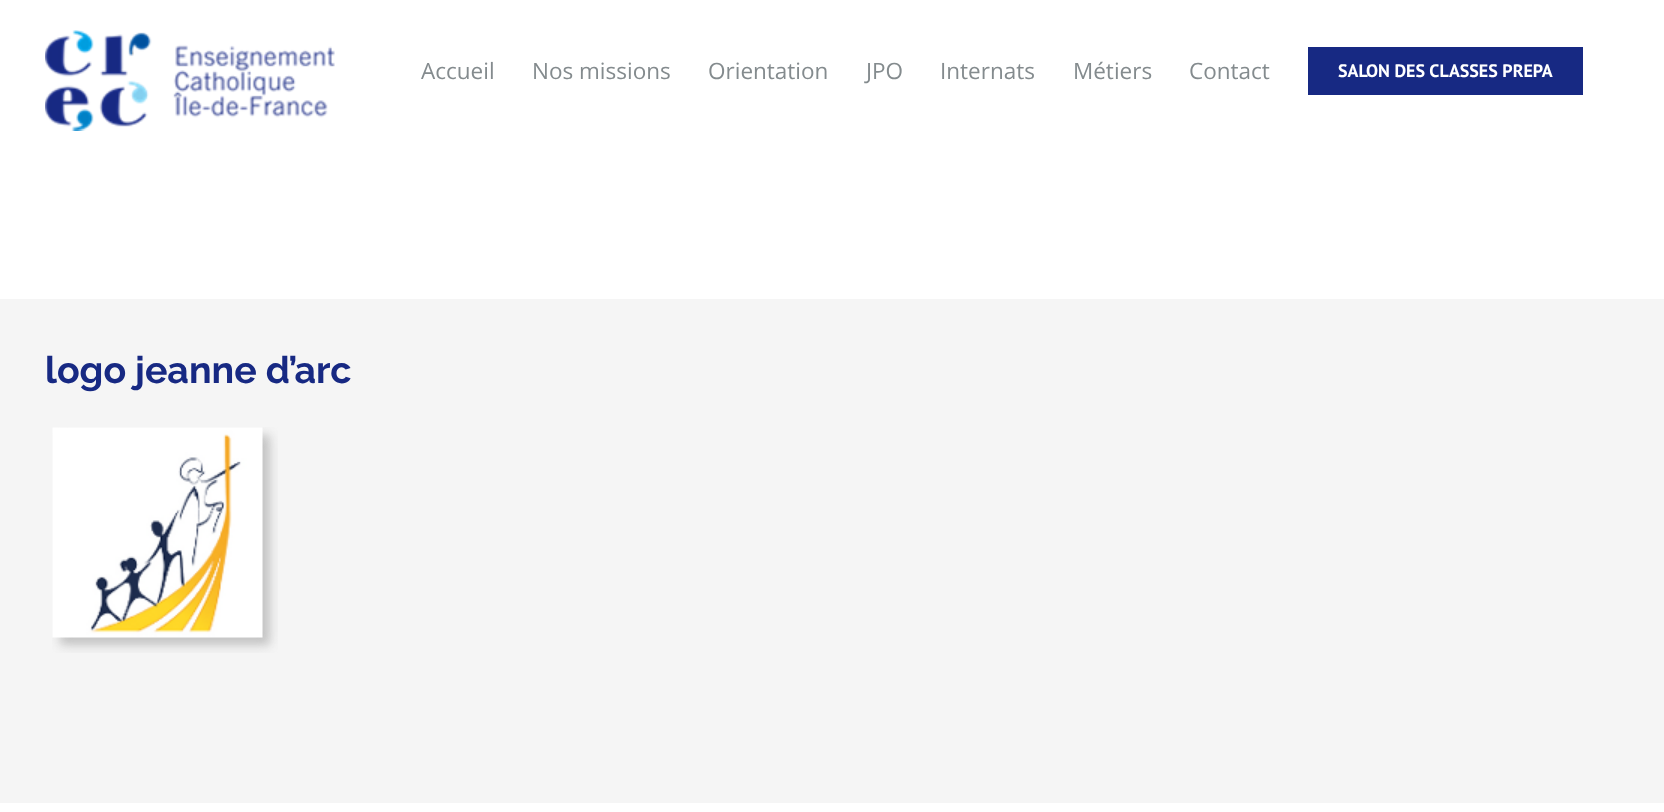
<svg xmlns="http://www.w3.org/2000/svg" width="1664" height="812">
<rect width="100%" height="100%" fill="#f5f5f5"/>
<rect width="1664" height="299" fill="#fff"/>
<image x="45" y="30" width="290" height="101" href="media/1.png"/>
<text x="421" y="79" style="font-family:Open Sans;font-size:22.5px;fill:#848b8e">Accueil</text>
<text x="532" y="79" style="font-family:Open Sans;font-size:22.5px;fill:#848b8e">Nos missions</text>
<text x="708" y="79" style="font-family:Open Sans;font-size:22.5px;fill:#848b8e">Orientation</text>
<text x="866" y="79" style="font-family:Open Sans;font-size:22.5px;fill:#848b8e">JPO</text>
<text x="940" y="79" style="font-family:Open Sans;font-size:22.5px;fill:#848b8e">Internats</text>
<text x="1073" y="79" style="font-family:Open Sans;font-size:22.5px;fill:#848b8e">Métiers</text>
<text x="1189" y="79" style="font-family:Open Sans;font-size:22.5px;fill:#848b8e">Contact</text>
<rect x="1308" y="47" width="275" height="48" fill="#172983"/>
<text x="1338" y="77" style="font-family:PT Sans;font-size:18px;font-weight:bold;fill:#fff">SALON DES CLASSES PREPA</text>
<text x="45" y="383" style="font-family:Raleway;font-size:37.5px;font-weight:100;fill:#172983">logo jeanne d’arc</text>
<image x="52" y="427" width="226" height="226" href="media/2.png"/>
<rect y="803" width="1664" height="9" fill="#fff"/>
</svg>
